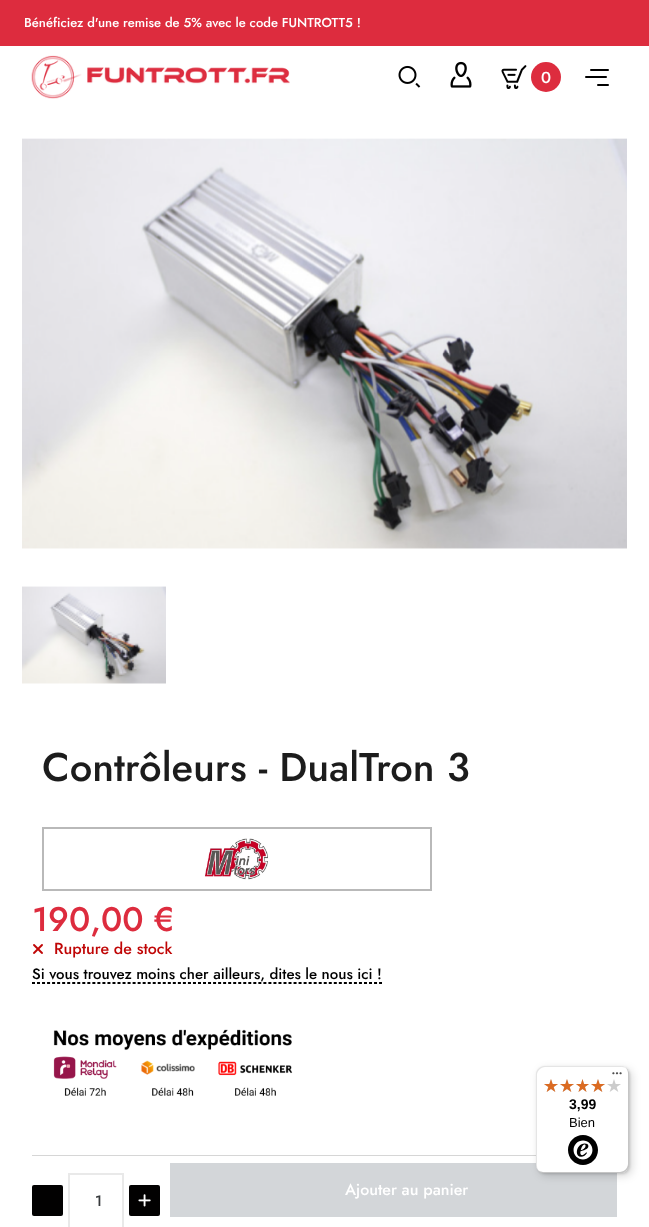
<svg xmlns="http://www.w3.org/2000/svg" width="649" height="1227">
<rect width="100%" height="100%" fill="#fff"/>
<rect width="649" height="46" fill="#dd2c3e"/>
<text x="24" y="27" style="font-family:Jost;font-size:13px;font-weight:500;fill:#fff">Bénéficiez d'une remise de 5% avec le code FUNTROTT5 !</text>
<image x="31" y="55" width="259" height="44" href="media/1.png"/>
<image x="398" y="65" width="23" height="23" href="media/2.png"/>
<image x="450" y="61" width="22" height="27" href="media/3.png"/>
<image x="501" y="65" width="26" height="24" href="media/4.png"/>
<circle cx="546" cy="77" r="15" fill="#dd2c3e"/>
<text x="541" y="83" style="font-family:Jost;font-size:16px;font-weight:500;fill:#fff">0</text>
<rect x="590" y="69" width="19" height="2" rx="1" fill="#000"/>
<rect x="585" y="76" width="22" height="2" rx="1" fill="#000"/>
<rect x="597" y="84" width="12" height="2" rx="1" fill="#000"/>
<image x="22" y="138" width="605" height="411" href="media/5.png"/>
<image x="22" y="586" width="144" height="98" href="media/6.png"/>
<text x="42" y="781" style="font-family:Jost;font-size:40px;font-weight:500;fill:#1c1c1c">Contrôleurs - DualTron 3</text>
<rect x="43" y="828" width="388" height="62" fill="none" stroke="#b9b9b9" stroke-width="2"/>
<image x="204" y="838" width="64" height="42" href="media/7.png"/>
<text x="32" y="931" style="font-family:Jost;font-size:34px;font-weight:500;fill:#dd2c3e">190,00 €</text>
<image x="33" y="944" width="10" height="10" href="media/8.png"/>
<text x="54" y="954" style="font-family:Jost;font-size:16px;font-weight:500;fill:#c00606">Rupture de stock</text>
<path d="M32 983.5h350" fill="none" stroke="#000" stroke-dasharray="3 2.03"/>
<path d="M32 982.5h350" fill="none" stroke="#000" stroke-dasharray="3 2.03"/>
<text x="32" y="979" style="font-family:Jost;font-size:15px;font-weight:500;fill:#000">Si vous trouvez moins cher ailleurs, dites le nous ici !</text>
<image x="53" y="1029" width="240" height="67" href="media/9.png"/>
<rect x="32" y="1155" width="504" height="1" fill="#d6d6d6"/>
<rect x="170" y="1163" width="447" height="54" fill="#d3d6d9"/>
<text x="345" y="1195" style="font-family:Jost;font-size:16px;font-weight:500;fill:#fff">Ajouter au panier</text>
<rect x="32" y="1185" width="31" height="31" rx="2" fill="#020101"/>
<rect x="69" y="1174" width="54" height="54" fill="none" stroke="#e9e9e9" stroke-width="2"/>
<text x="95" y="1206" style="font-family:Jost;font-size:15px;font-weight:500;fill:#373a3c">1</text>
<rect x="129" y="1185" width="31" height="31" rx="2" fill="#020101"/>
<image x="138" y="1194" width="13" height="13" href="media/10.png"/>
<rect x="539" y="1069" width="93" height="107" rx="8" fill="#00000026" filter="blur(4px)"/>
<rect x="537" y="1067" width="93" height="107" rx="8" fill="#00000026" filter="blur(1px)"/>
<rect x="536" y="1066" width="93" height="107" rx="8" fill="#fff"/>
<path d="M545 1067h77c2 0 4 1 6 3c-2-2-4-4-7-4h-77c-4 0-8 4-8 8v91c0 3 2 5 4 7c-2-2-3-4-3-6v-91c0-4 4-8 8-8z" fill="#0000001a"/>
<path d="M537 1169c2 2 4 4 7 4h77c4 0 8-4 8-8v-91c0-3-2-5-4-7c2 2 3 4 3 6v91c0 4-4 8-8 8h-77c-2 0-4-1-6-3z" fill="#00000033"/>
<path d="M538 1170c1 2 4 3 6 3h77c4 0 8-4 8-8v-91c0-2-1-5-3-6c1 1 2 3 2 5v91c0 5-3 8-8 8h-77c-2 0-4-1-5-2z" fill="#32323233"/>
<path d="M628 1074c0-5-3-8-8-8h1c4 0 8 4 8 8v91c0 4-4 8-8 8h-77c-4 0-8-4-8-8v-1c0 5 3 8 8 8h76c5 0 8-3 8-8z" fill="#ffffff4d"/>
<image x="612" y="1072" width="10" height="3" href="media/11.png"/>
<image x="544" y="1079" width="14" height="13" href="media/12.png"/>
<image x="560" y="1079" width="14" height="13" href="media/12.png"/>
<image x="576" y="1079" width="13" height="13" href="media/13.png"/>
<image x="591" y="1079" width="14" height="13" href="media/12.png"/>
<image x="607" y="1079" width="14" height="13" href="media/12.png"/>
<image x="544" y="1079" width="14" height="13" href="media/14.png"/>
<image x="560" y="1079" width="14" height="13" href="media/14.png"/>
<image x="576" y="1079" width="13" height="13" href="media/15.png"/>
<image x="591" y="1079" width="14" height="13" href="media/14.png"/>
<text x="569" y="1109" style="font-family:Liberation Sans;font-size:14px;font-weight:bold;fill:#000">3,99</text>
<text x="569" y="1127" style="font-family:Liberation Sans;font-size:13px;fill:#000">Bien</text>
<image x="568" y="1135" width="30" height="30" href="media/16.png"/>
</svg>
